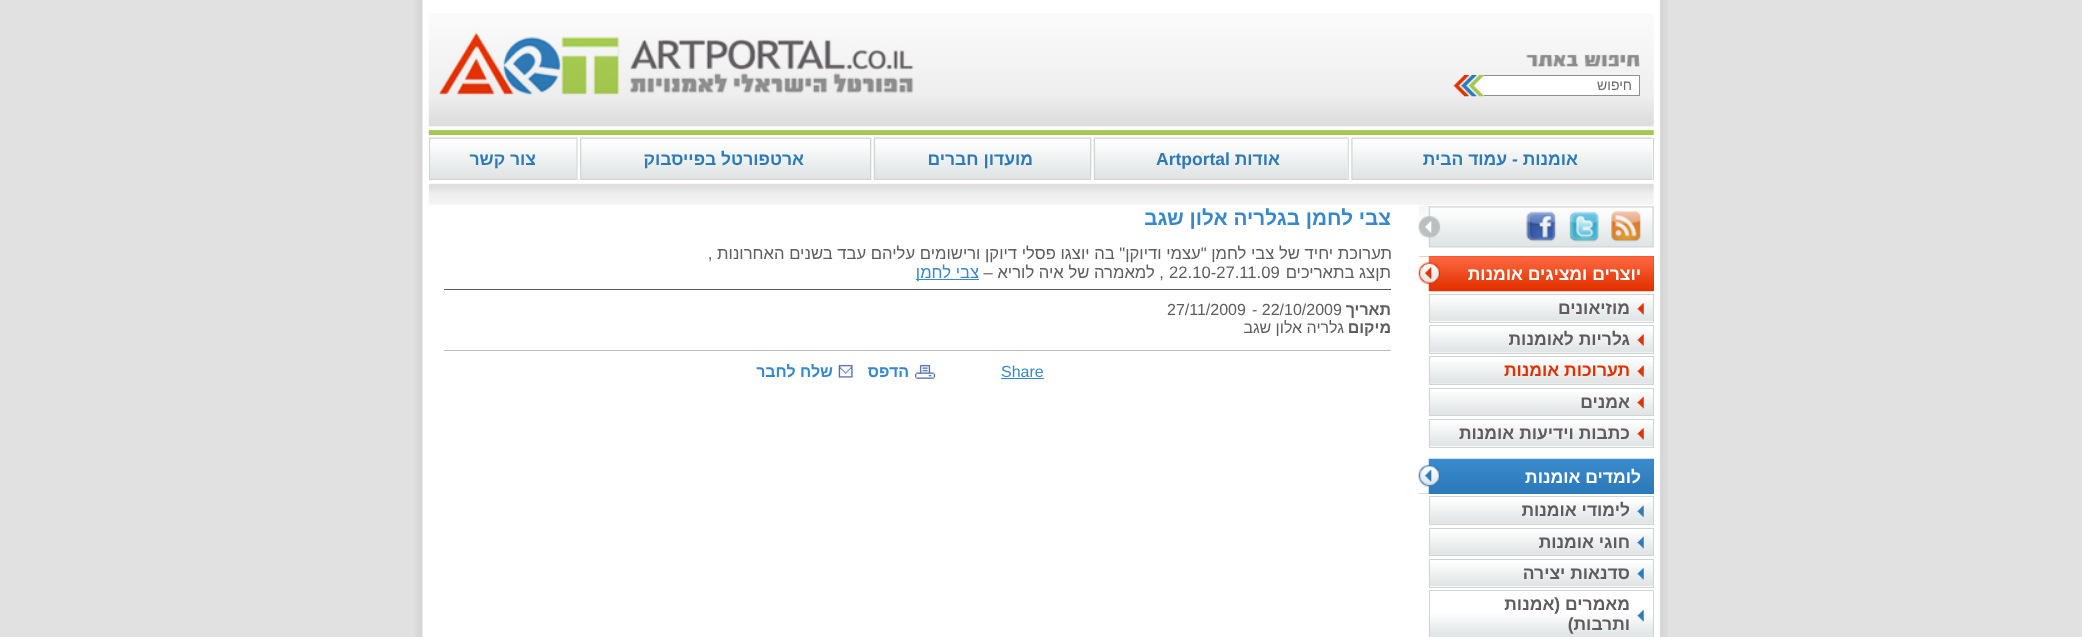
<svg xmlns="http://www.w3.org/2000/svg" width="2082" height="637">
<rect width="100%" height="100%" fill="#e1e1e1"/>
<image x="414" y="0" width="1254" height="637" href="media/1.png"/>
<image x="428" y="13" width="1226" height="122" href="media/2.png"/>
<image x="1526" y="54" width="114" height="13" href="media/3.png"/>
<rect x="1484" y="76" width="155" height="19" fill="#fff"/>
<rect x="1484" y="75" width="156" height="1" fill="#909090"/>
<rect x="1639" y="75" width="1" height="21" fill="#909090"/>
<rect x="1484" y="95" width="156" height="1" fill="#909090"/>
<text x="1632" y="90" style="font-family:Liberation Sans;font-size:14px;direction:rtl;fill:#676767">חיפוש</text>
<image x="1453" y="75" width="31" height="22" href="media/4.png"/>
<image x="438" y="30" width="476" height="66" href="media/5.png"/>
<image x="428" y="183" width="1226" height="22" href="media/6.png"/>
<rect x="1653" y="138" width="1" height="42" fill="#cfd4d5"/>
<rect x="429" y="138" width="1" height="42" fill="#cfd4d5"/>
<image x="1347" y="137" width="306" height="43" href="media/7.png"/>
<text x="1578" y="165" style="font-family:Liberation Sans;font-size:17.5px;font-weight:bold;direction:rtl;fill:#2e7ab7">אומנות - עמוד הבית</text>
<image x="1090" y="137" width="258" height="43" href="media/8.png"/>
<text x="1280" y="165" style="font-family:Liberation Sans;font-size:17.5px;font-weight:bold;direction:rtl;fill:#2e7ab7">אודות</text>
<text x="1156" y="165" style="font-family:Liberation Sans;font-size:17.5px;font-weight:bold;fill:#2e7ab7">Artportal</text>
<image x="870" y="137" width="220" height="43" href="media/9.png"/>
<text x="1033" y="165" style="font-family:Liberation Sans;font-size:17.5px;font-weight:bold;direction:rtl;fill:#2e7ab7">מועדון חברים</text>
<image x="576" y="137" width="294" height="43" href="media/10.png"/>
<text x="804" y="165" style="font-family:Liberation Sans;font-size:17.5px;font-weight:bold;direction:rtl;fill:#2e7ab7">ארטפורטל בפייסבוק</text>
<image x="430" y="137" width="147" height="43" href="media/11.png"/>
<text x="536" y="165" style="font-family:Liberation Sans;font-size:17.5px;font-weight:bold;direction:rtl;fill:#2e7ab7">צור קשר</text>
<image x="1418" y="206" width="236" height="42" href="media/12.png"/>
<image x="1611" y="211" width="31" height="31" href="media/13.png"/>
<image x="1569" y="211" width="30" height="31" href="media/14.png"/>
<image x="1526" y="211" width="31" height="31" href="media/15.png"/>
<rect x="1419" y="256" width="235" height="35" fill="#e23201"/>
<image x="1418" y="256" width="236" height="36" href="media/16.png"/>
<text x="1641" y="280" style="font-family:Liberation Sans;font-size:17.5px;font-weight:bold;direction:rtl;fill:#fff">יוצרים ומציגים אומנות</text>
<image x="1428" y="298" width="225" height="24" href="media/17.png"/>
<rect x="1429.5" y="294.5" width="224" height="28" fill="none" stroke="#cfd4d5"/>
<image x="1637" y="303" width="7" height="12" href="media/18.png"/>
<text x="1630" y="314" style="font-family:Liberation Sans;font-size:17.5px;font-weight:bold;direction:rtl;fill:#605b5f">מוזיאונים</text>
<image x="1428" y="329" width="225" height="24" href="media/19.png"/>
<rect x="1429.5" y="325.5" width="224" height="28" fill="none" stroke="#cfd4d5"/>
<image x="1637" y="334" width="7" height="12" href="media/20.png"/>
<text x="1630" y="345" style="font-family:Liberation Sans;font-size:17.5px;font-weight:bold;direction:rtl;fill:#605b5f">גלריות לאומנות</text>
<image x="1428" y="361" width="225" height="23" href="media/21.png"/>
<rect x="1429.5" y="356.5" width="224" height="28" fill="none" stroke="#cfd4d5"/>
<image x="1637" y="365" width="7" height="12" href="media/22.png"/>
<text x="1630" y="376" style="font-family:Liberation Sans;font-size:17.5px;font-weight:bold;direction:rtl;fill:#e23100">תערוכות אומנות</text>
<image x="1428" y="392" width="225" height="23" href="media/23.png"/>
<rect x="1429.5" y="388.5" width="224" height="27" fill="none" stroke="#cfd4d5"/>
<image x="1637" y="396" width="7" height="13" href="media/24.png"/>
<text x="1630" y="408" style="font-family:Liberation Sans;font-size:17.5px;font-weight:bold;direction:rtl;fill:#605b5f">אמנים</text>
<image x="1428" y="423" width="225" height="24" href="media/17.png"/>
<rect x="1429.5" y="419.5" width="224" height="28" fill="none" stroke="#cfd4d5"/>
<image x="1637" y="428" width="7" height="12" href="media/18.png"/>
<text x="1630" y="439" style="font-family:Liberation Sans;font-size:17.5px;font-weight:bold;direction:rtl;fill:#605b5f">כתבות וידיעות אומנות</text>
<rect x="1419" y="459" width="235" height="35" fill="#2d7bba"/>
<image x="1418" y="458" width="236" height="36" href="media/25.png"/>
<text x="1641" y="483" style="font-family:Liberation Sans;font-size:17.5px;font-weight:bold;direction:rtl;fill:#fff">לומדים אומנות</text>
<image x="1428" y="501" width="225" height="23" href="media/21.png"/>
<rect x="1429.5" y="496.5" width="224" height="28" fill="none" stroke="#cfd4d5"/>
<image x="1637" y="505" width="7" height="12" href="media/26.png"/>
<text x="1630" y="516" style="font-family:Liberation Sans;font-size:17.5px;font-weight:bold;direction:rtl;fill:#605b5f">לימודי אומנות</text>
<image x="1428" y="532" width="225" height="23" href="media/23.png"/>
<rect x="1429.5" y="528.5" width="224" height="27" fill="none" stroke="#cfd4d5"/>
<image x="1637" y="536" width="7" height="13" href="media/27.png"/>
<text x="1630" y="548" style="font-family:Liberation Sans;font-size:17.5px;font-weight:bold;direction:rtl;fill:#605b5f">חוגי אומנות</text>
<image x="1428" y="563" width="225" height="24" href="media/17.png"/>
<rect x="1429.5" y="559.5" width="224" height="28" fill="none" stroke="#cfd4d5"/>
<image x="1637" y="568" width="7" height="12" href="media/28.png"/>
<text x="1630" y="579" style="font-family:Liberation Sans;font-size:17.5px;font-weight:bold;direction:rtl;fill:#605b5f">סדנאות יצירה</text>
<image x="1428" y="614" width="225" height="23" href="media/29.png"/>
<rect x="1429.5" y="590.5" width="224" height="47" fill="none" stroke="#cfd4d5"/>
<image x="1637" y="609" width="7" height="13" href="media/30.png"/>
<text x="1630" y="610" style="font-family:Liberation Sans;font-size:17.5px;font-weight:bold;direction:rtl;fill:#605b5f">מאמרים (אמנות</text>
<text x="1630" y="630" style="font-family:Liberation Sans;font-size:17.5px;font-weight:bold;direction:rtl;fill:#605b5f">ותרבות)</text>
<text x="1391" y="225" style="font-family:Liberation Sans;font-size:20.75px;font-weight:bold;direction:rtl;fill:#3889cb">צבי לחמן בגלריה אלון שגב</text>
<text x="1392" y="259" style="font-family:Liberation Sans;font-size:16.65px;direction:rtl;fill:#605b5f">תערוכת יחיד של צבי לחמן "עצמי ודיוקן" בה יוצגו פסלי דיוקן ורישומים עליהם עבד בשנים האחרונות ,</text>
<text x="1391" y="278" style="font-family:Liberation Sans;font-size:16.65px;direction:rtl;fill:#605b5f">תןצג בתאריכים</text>
<text x="1169" y="278" style="font-family:Liberation Sans;font-size:16.65px;fill:#605b5f">22.10-27.11.09</text>
<text x="1164" y="278" style="font-family:Liberation Sans;font-size:16.65px;direction:rtl;fill:#605b5f">, למאמרה של איה לוריא –</text>
<rect x="916" y="279" width="63" height="1" fill="#3889cb"/>
<text x="979" y="278" style="font-family:Liberation Sans;font-size:16.65px;direction:rtl;fill:#3889cb">צבי לחמן</text>
<rect x="444" y="289" width="947" height="1" fill="#5b5b5f"/>
<text x="1391" y="315" style="font-family:Liberation Sans;font-size:16px;font-weight:bold;direction:rtl;fill:#605b5f">תאריך</text>
<text x="1252" y="315" style="font-family:Liberation Sans;font-size:16px;fill:#605b5f">- 22/10/2009</text>
<text x="1167" y="315" style="font-family:Liberation Sans;font-size:16px;fill:#605b5f">27/11/2009</text>
<text x="1391" y="333" style="font-family:Liberation Sans;font-size:16px;font-weight:bold;direction:rtl;fill:#605b5f">מיקום</text>
<text x="1344" y="333" style="font-family:Liberation Sans;font-size:16px;direction:rtl;fill:#605b5f">גלריה אלון שגב</text>
<rect x="444" y="350" width="947" height="1" fill="#bcbcbc"/>
<text x="1001" y="377" style="font-family:Liberation Sans;font-size:16px;fill:#3889cb">Share</text>
<rect x="1001" y="378" width="43" height="1" fill="#3889cb"/>
<image x="914" y="364" width="22" height="15" href="media/31.png"/>
<text x="909" y="377" style="font-family:Liberation Sans;font-size:16px;font-weight:bold;direction:rtl;fill:#3889cb">הדפס</text>
<image x="838" y="364" width="15" height="14" href="media/32.png"/>
<text x="833" y="377" style="font-family:Liberation Sans;font-size:16px;font-weight:bold;direction:rtl;fill:#3889cb">שלח לחבר</text>
</svg>
